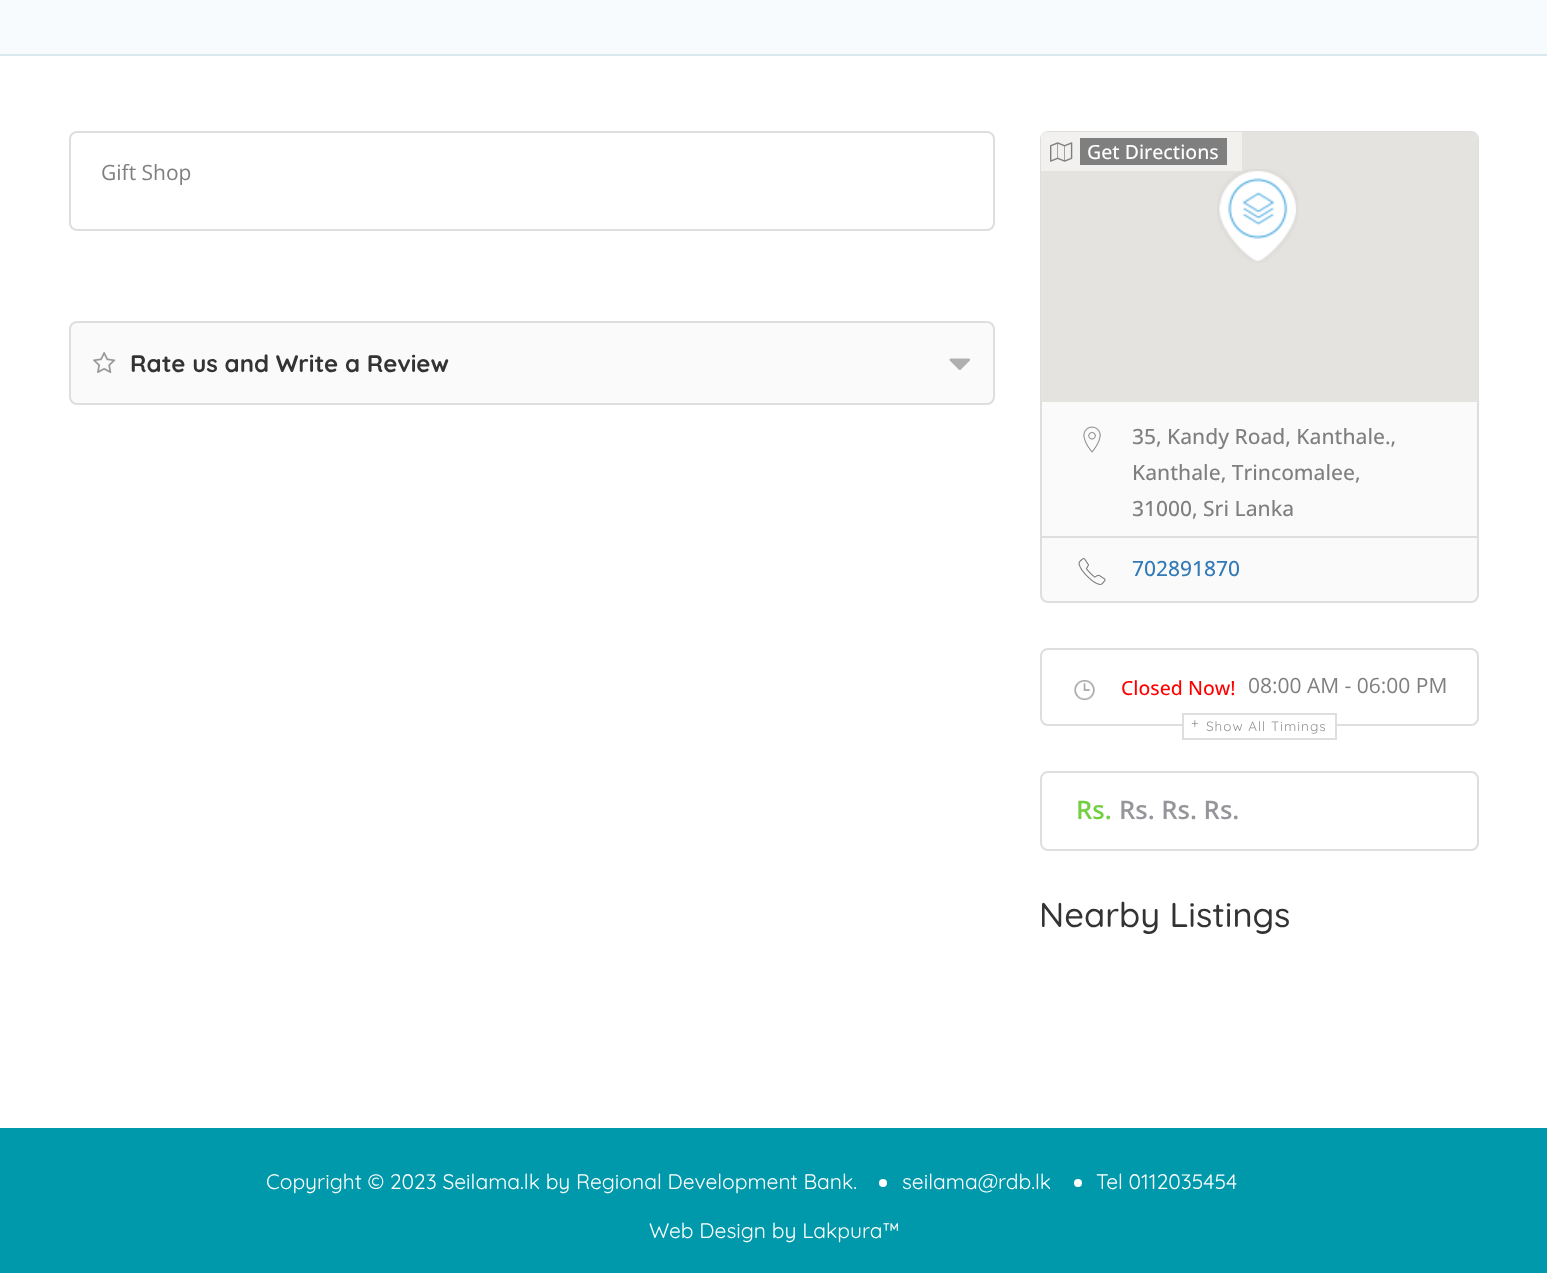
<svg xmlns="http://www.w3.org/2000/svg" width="1547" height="1273">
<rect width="100%" height="100%" fill="#0099ab"/>
<rect width="1547" height="54" fill="#f7fbfe"/>
<rect y="54" width="1547" height="2" fill="#dbe7ef"/>
<rect y="56" width="1547" height="1072" fill="#fff"/>
<rect x="70" y="132" width="924" height="98" rx="7" fill="none" stroke="#dedede" stroke-width="2"/>
<text x="101" y="180" style="font-family:Open Sans;font-size:21px;fill:#7f7f7f">Gift Shop</text>
<rect x="70" y="322" width="924" height="82" rx="7" fill="#fafafa" stroke="#dedede" stroke-width="2"/>
<image x="93" y="351" width="23" height="22" href="media/1.png"/>
<text x="130" y="372" style="font-family:Quicksand;font-size:24px;font-weight:bold;fill:#333">Rate us and Write a Review</text>
<image x="949" y="358" width="21" height="12" href="media/2.png"/>
<rect x="1041" y="132" width="437" height="470" rx="7" fill="#fafafa" stroke="#dedede" stroke-width="2"/>
<path d="M1047 132h425c3.5 0 6 2.5 6 6v264h-437v-264c0-3.5 2.5-6 6-6z" fill="#e5e3df"/>
<image x="1217" y="169" width="81" height="94" href="media/3.png"/>
<path d="M1047 132h195v39h-201v-33c0-3.5 2.5-6 6-6z" fill="#ffffff80"/>
<image x="1050" y="142" width="23" height="20" href="media/4.png"/>
<rect x="1080" y="138" width="147" height="27" fill="#7f7f7f"/>
<text x="1087" y="159" style="font-family:Open Sans;font-size:19.5px;font-weight:500;fill:#fff">Get Directions</text>
<rect x="1041" y="536" width="437" height="2" fill="#dedede"/>
<image x="1083" y="426" width="18" height="27" href="media/5.png"/>
<text x="1132" y="444" style="font-family:Open Sans;font-size:21px;font-weight:500;fill:#7f7f7f">35, Kandy Road, Kanthale.,</text>
<text x="1132" y="480" style="font-family:Open Sans;font-size:21px;font-weight:500;fill:#7f7f7f">Kanthale, Trincomalee,</text>
<text x="1132" y="516" style="font-family:Open Sans;font-size:21px;font-weight:500;fill:#7f7f7f">31000, Sri Lanka</text>
<image x="1078" y="558" width="28" height="27" href="media/6.png"/>
<text x="1132" y="576" style="font-family:Open Sans;font-size:21px;font-weight:500;fill:#337ab7">702891870</text>
<rect x="1041" y="649" width="437" height="76" rx="7" fill="none" stroke="#dedede" stroke-width="2"/>
<image x="1074" y="680" width="21" height="21" href="media/7.png"/>
<text x="1121" y="695" style="font-family:Open Sans;font-size:19.5px;font-weight:500;fill:#f00">Closed Now!</text>
<text x="1248" y="693" style="font-family:Open Sans;font-size:21px;fill:#7f7f7f">08:00 AM - 06:00 PM</text>
<rect x="1184" y="724" width="151" height="2" fill="#fff"/>
<rect x="1183" y="714" width="153" height="25" fill="none" stroke="#dedede" stroke-width="2"/>
<text x="1191" y="728" style="font-family:Quicksand;font-size:13.5px;letter-spacing:1px;fill:#939393">+</text>
<text x="1206" y="731" style="font-family:Quicksand;font-size:13.5px;letter-spacing:1px;fill:#939393">Show All Timings</text>
<rect x="1041" y="772" width="437" height="78" rx="7" fill="none" stroke="#dedede" stroke-width="2"/>
<text x="1076" y="819" style="font-family:Open Sans;font-size:25.5px;font-weight:600;fill:#73cf42">Rs.</text>
<text x="1119" y="819" style="font-family:Open Sans;font-size:25.5px;font-weight:600;fill:#97959a">Rs. Rs. Rs.</text>
<text x="1039" y="927" style="font-family:Quicksand;font-size:34.5px;font-weight:500;fill:#333">Nearby Listings</text>
<text x="266" y="1189" style="font-family:Quicksand;font-size:21px;fill:#fff">Copyright © 2023 Seilama.lk by Regional Development Bank.</text>
<circle cx="883" cy="1183" r="4" fill="#fff"/>
<text x="902" y="1189" style="font-family:Quicksand;font-size:21px;fill:#fff">seilama@rdb.lk</text>
<circle cx="1078" cy="1183" r="4" fill="#fff"/>
<text x="1096" y="1189" style="font-family:Quicksand;font-size:21px;fill:#fff">Tel 0112035454</text>
<text x="649" y="1238" style="font-family:Quicksand;font-size:21px;fill:#fff">Web Design by Lakpura™</text>
</svg>
